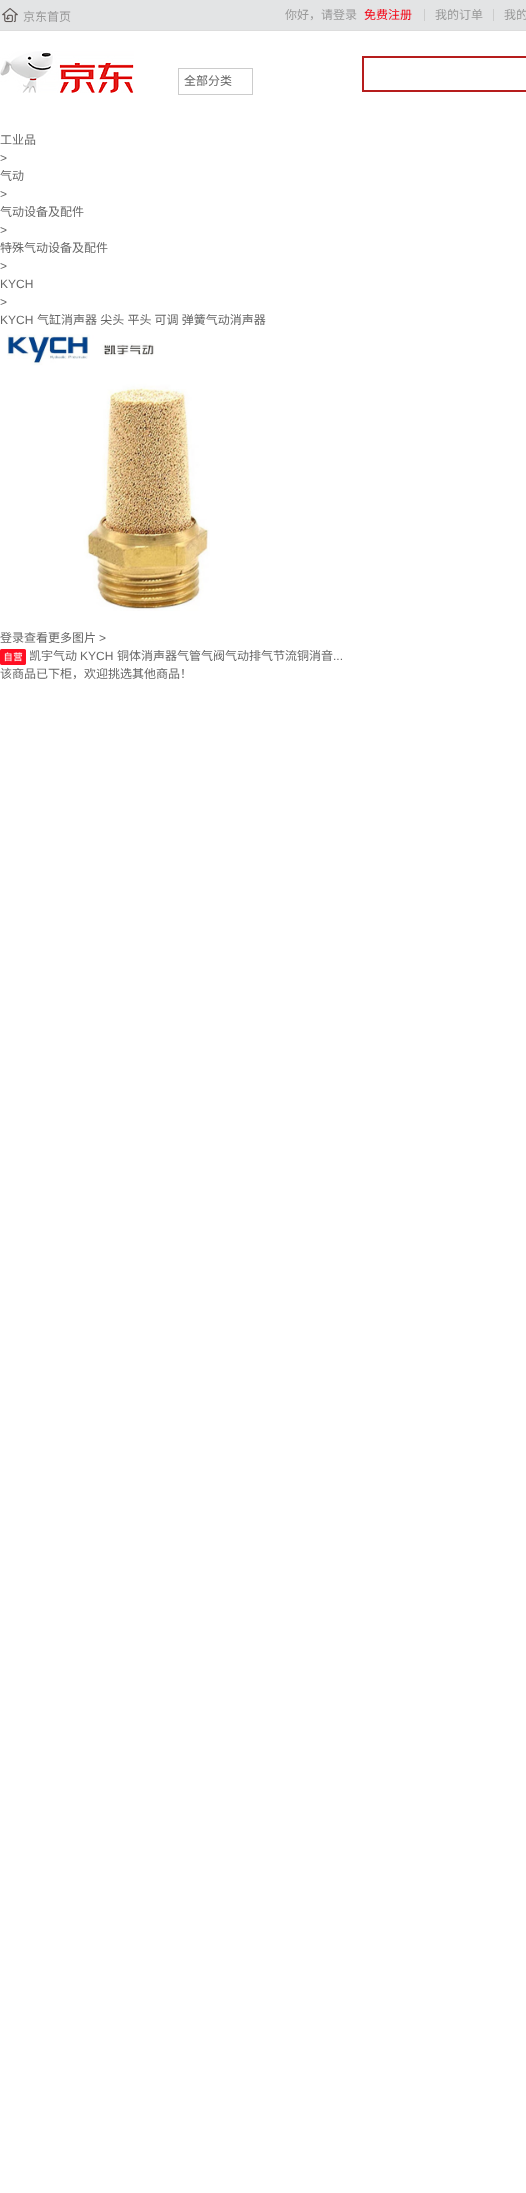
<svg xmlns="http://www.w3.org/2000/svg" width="526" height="2193">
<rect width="100%" height="100%" fill="#fff"/>
<rect width="526" height="30" fill="#e3e4e5"/>
<rect y="30" width="526" height="1" fill="#ddd"/>
<image x="2" y="8" width="16" height="15" href="media/1.png"/>
<text x="23" y="21" style="font-family:Noto Sans CJK SC;font-size:12px;fill:#999">京东首页</text>
<text x="285" y="19" style="font-family:Noto Sans CJK SC;font-size:12px;fill:#999">你好，请登录</text>
<text x="364" y="19" style="font-family:Noto Sans CJK SC;font-size:12px;fill:#f30213">免费注册</text>
<rect x="424" y="9" width="1" height="12" fill="#ccc"/>
<text x="435" y="19" style="font-family:Noto Sans CJK SC;font-size:12px;fill:#999">我的订单</text>
<rect x="493" y="9" width="1" height="12" fill="#ccc"/>
<text x="504" y="19" style="font-family:Noto Sans CJK SC;font-size:12px;fill:#999">我的</text>
<image x="0" y="51" width="134" height="42" href="media/2.png"/>
<rect x="178.5" y="68.5" width="74" height="26" fill="none" stroke="#ccc"/>
<text x="184" y="85" style="font-family:Noto Sans CJK SC;font-size:12px;fill:#666">全部分类</text>
<rect x="362" y="56" width="164" height="2" fill="#b61d1d"/>
<rect x="362" y="90" width="164" height="2" fill="#b61d1d"/>
<rect x="362" y="56" width="2" height="36" fill="#b61d1d"/>
<text x="0" y="144" style="font-family:Noto Sans CJK SC;font-size:12px;fill:#666">工业品</text>
<text x="0" y="162" style="font-family:Liberation Sans;font-size:12px;fill:#666">&gt;</text>
<text x="0" y="180" style="font-family:Noto Sans CJK SC;font-size:12px;fill:#666">气动</text>
<text x="0" y="198" style="font-family:Liberation Sans;font-size:12px;fill:#666">&gt;</text>
<text x="0" y="216" style="font-family:Noto Sans CJK SC;font-size:12px;fill:#666">气动设备及配件</text>
<text x="0" y="234" style="font-family:Liberation Sans;font-size:12px;fill:#666">&gt;</text>
<text x="0" y="252" style="font-family:Noto Sans CJK SC;font-size:12px;fill:#666">特殊气动设备及配件</text>
<text x="0" y="270" style="font-family:Liberation Sans;font-size:12px;fill:#666">&gt;</text>
<text x="0" y="288" style="font-family:Liberation Sans;font-size:12px;fill:#666">KYCH</text>
<text x="0" y="306" style="font-family:Liberation Sans;font-size:12px;fill:#666">&gt;</text>
<text x="0" y="324" style="font-family:Liberation Sans;font-size:12px;fill:#666">KYCH</text>
<text x="37" y="324" word-spacing="0.5" style="font-family:Noto Sans CJK SC;font-size:12px;fill:#666">气缸消声器 尖头 平头 可调 弹簧气动消声器</text>
<image x="7" y="334" width="203" height="277" href="media/3.png"/>
<text x="0" y="642" style="font-family:Noto Sans CJK SC;font-size:12px;fill:#666">登录查看更多图片</text>
<text x="99" y="642" style="font-family:Liberation Sans;font-size:12px;fill:#666">&gt;</text>
<image x="0" y="649" width="26" height="16" href="media/4.png"/>
<text x="29" y="660" style="font-family:Noto Sans CJK SC;font-size:12px;fill:#666">凯宇气动</text>
<text x="80" y="660" style="font-family:Liberation Sans;font-size:12px;fill:#666">KYCH</text>
<text x="117" y="660" style="font-family:Noto Sans CJK SC;font-size:12px;fill:#666">铜体消声器气管气阀气动排气节流铜消音</text>
<text x="333" y="660" style="font-family:Liberation Sans;font-size:12px;fill:#666">...</text>
<text x="0" y="678" style="font-family:Noto Sans CJK SC;font-size:12px;fill:#666">该商品已下柜，欢迎挑选其他商品！</text>
</svg>
